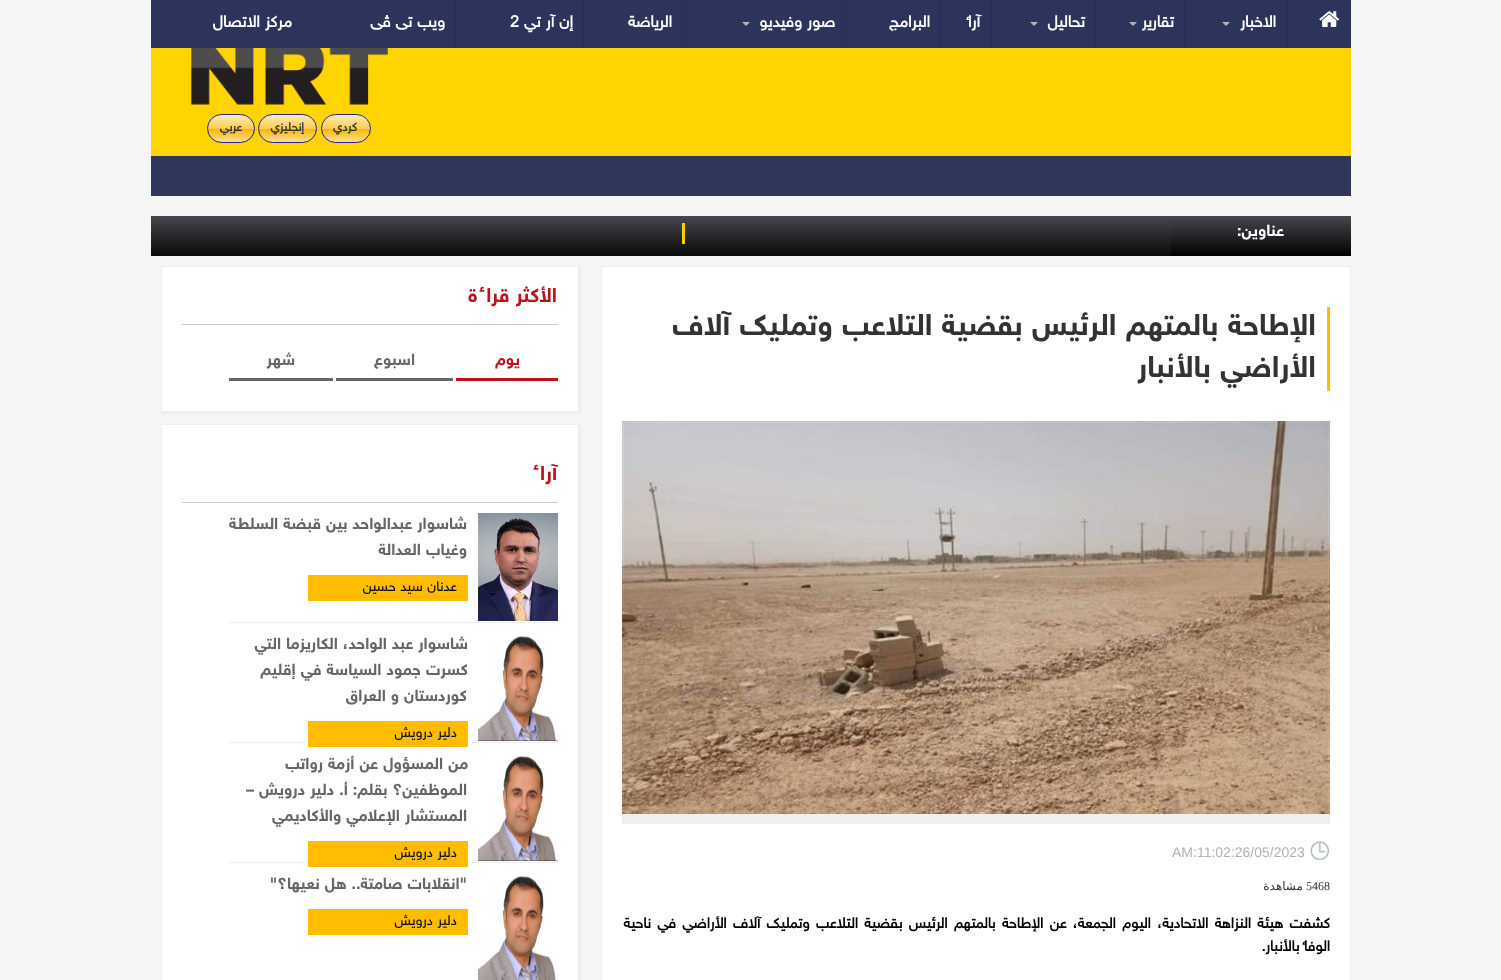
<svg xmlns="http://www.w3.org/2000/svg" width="1501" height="980">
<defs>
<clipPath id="clip1"><rect x="321" y="114" width="50" height="29" rx="14.5"/></clipPath>
<linearGradient id="g1" gradientUnits="userSpaceOnUse" x1="346" y1="115" x2="346" y2="142"><stop offset="0" stop-color="#fceabb"/><stop offset="0.5" stop-color="#fccd4d"/><stop offset="0.51" stop-color="#f8b500"/><stop offset="1" stop-color="#fbdf93"/></linearGradient>
<clipPath id="clip2"><rect x="258" y="114" width="59" height="29" rx="14.5"/></clipPath>
<linearGradient id="g2" gradientUnits="userSpaceOnUse" x1="288" y1="115" x2="288" y2="142"><stop offset="0" stop-color="#fceabb"/><stop offset="0.5" stop-color="#fccd4d"/><stop offset="0.51" stop-color="#f8b500"/><stop offset="1" stop-color="#fbdf93"/></linearGradient>
<clipPath id="clip3"><rect x="207" y="114" width="48" height="29" rx="14.5"/></clipPath>
<linearGradient id="g3" gradientUnits="userSpaceOnUse" x1="231" y1="115" x2="231" y2="142"><stop offset="0" stop-color="#fceabb"/><stop offset="0.5" stop-color="#fccd4d"/><stop offset="0.51" stop-color="#f8b500"/><stop offset="1" stop-color="#fbdf93"/></linearGradient>
<linearGradient id="g4" gradientUnits="userSpaceOnUse" x1="1261" y1="216" x2="1261" y2="256"><stop offset="0" stop-color="#45484d"/><stop offset="1" stop-color="#000"/></linearGradient>
<linearGradient id="g5" gradientUnits="userSpaceOnUse" x1="661" y1="216" x2="661" y2="262"><stop offset="0" stop-color="#45484d"/><stop offset="1" stop-color="#000"/></linearGradient>
</defs>
<rect width="100%" height="100%" fill="#f5f5f5"/>
<rect x="151" y="156" width="1200" height="40" fill="#30375c"/>
<rect x="1287" width="63" height="48" fill="#2c345b"/>
<rect x="1350" width="1" height="48" fill="#282f52"/>
<image x="1319" y="11" width="21" height="16" href="media/1.png"/>
<rect x="1185" width="101" height="48" fill="#2c345b"/>
<rect x="1286" width="1" height="48" fill="#282f52"/>
<text x="1276" y="27" style="font-family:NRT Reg;font-size:16px;font-weight:bold;direction:rtl;fill:#fff">الاخبار</text>
<path d="M1222 22h8l-4 4z" fill="#b3b3b3"/>
<rect x="1096" width="88" height="48" fill="#2c345b"/>
<rect x="1184" width="1" height="48" fill="#282f52"/>
<text x="1174" y="27" style="font-family:NRT Reg;font-size:16px;font-weight:bold;direction:rtl;fill:#fff">تقارير</text>
<path d="M1129 22h8l-4 4z" fill="#b3b3b3"/>
<rect x="991" width="104" height="48" fill="#2c345b"/>
<rect x="1095" width="1" height="48" fill="#282f52"/>
<text x="1085" y="27" style="font-family:NRT Reg;font-size:16px;font-weight:bold;direction:rtl;fill:#fff">تحاليل</text>
<path d="M1030 22h8l-4 4z" fill="#b3b3b3"/>
<rect x="941" width="49" height="48" fill="#2c345b"/>
<rect x="990" width="1" height="48" fill="#282f52"/>
<text x="980" y="27" style="font-family:NRT Reg;font-size:16px;font-weight:bold;direction:rtl;fill:#fff">آراء</text>
<rect x="846" width="94" height="48" fill="#2c345b"/>
<rect x="940" width="1" height="48" fill="#282f52"/>
<text x="930" y="27" style="font-family:NRT Reg;font-size:16px;font-weight:bold;direction:rtl;fill:#fff">البرامج</text>
<rect x="683" width="162" height="48" fill="#2c345b"/>
<rect x="845" width="1" height="48" fill="#282f52"/>
<text x="835" y="27" style="font-family:NRT Reg;font-size:16px;font-weight:bold;direction:rtl;fill:#fff">صور وفيديو</text>
<path d="M742 22h8l-4 4z" fill="#b3b3b3"/>
<rect x="584" width="98" height="48" fill="#2c345b"/>
<rect x="682" width="1" height="48" fill="#282f52"/>
<text x="672" y="27" style="font-family:NRT Reg;font-size:16px;font-weight:bold;direction:rtl;fill:#fff">الرياضة</text>
<rect x="456" width="127" height="48" fill="#2c345b"/>
<rect x="583" width="1" height="48" fill="#282f52"/>
<text x="573" y="27" style="font-family:NRT Reg;font-size:16px;font-weight:bold;direction:rtl;fill:#fff">إن آر تي</text>
<text x="510" y="27" style="font-family:NRT Reg;font-size:16px;font-weight:bold;fill:#fff">2</text>
<rect x="151" width="304" height="48" fill="#2c345b"/>
<rect x="455" width="1" height="48" fill="#282f52"/>
<text x="445" y="27" style="font-family:NRT Reg;font-size:16px;font-weight:bold;direction:rtl;fill:#fff">ویب تی ڤی</text>
<text x="292" y="27" style="font-family:NRT Reg;font-size:16px;font-weight:bold;direction:rtl;fill:#fff">مركز الاتصال</text>
<rect x="151" y="48" width="1200" height="108" fill="#ffd400"/>
<image x="191" y="48" width="197" height="57" href="media/2.png"/>
<g clip-path="url(#clip1)">
<rect x="321" y="115" width="50" height="27" fill="url(#g1)"/>
</g>
<rect x="321.5" y="114.5" width="49" height="28" rx="14" fill="none" stroke="#25208e"/>
<text x="357" y="131" style="font-family:NRT Reg;font-size:12px;font-weight:bold;direction:rtl;fill:#333">کردي</text>
<g clip-path="url(#clip2)">
<rect x="258" y="115" width="59" height="27" fill="url(#g2)"/>
</g>
<rect x="258.5" y="114.5" width="58" height="28" rx="14" fill="none" stroke="#25208e"/>
<text x="304" y="131" style="font-family:NRT Reg;font-size:12px;font-weight:bold;direction:rtl;fill:#333">إنجليزي</text>
<g clip-path="url(#clip3)">
<rect x="207" y="115" width="48" height="27" fill="url(#g3)"/>
</g>
<rect x="207.5" y="114.5" width="47" height="28" rx="14" fill="none" stroke="#25208e"/>
<text x="242" y="131" style="font-family:NRT Reg;font-size:12px;font-weight:bold;direction:rtl;fill:#333">عربي</text>
<rect x="1171" y="216" width="180" height="40" fill="url(#g4)"/>
<text x="1284" y="236" style="font-family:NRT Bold;font-size:16px;font-weight:bold;direction:rtl;fill:#fff">عناوین:</text>
<rect x="151" y="216" width="1020" height="40" fill="url(#g5)"/>
<rect x="682" y="223" width="3" height="21" fill="#fc0"/>
<rect x="602" y="267" width="748" height="713" fill="#fff"/>
<rect x="601" y="266" width="750" height="1" fill="#eee"/>
<rect x="1350" y="266" width="1" height="714" fill="#eee"/>
<rect x="601" y="266" width="1" height="714" fill="#eee"/>
<rect x="1327" y="307" width="3" height="84" fill="#ffbc00"/>
<text x="1316" y="335" style="font-family:NRT Bold;font-size:30px;font-weight:bold;direction:rtl;fill:#333">الإطاحة بالمتهم الرئيس بقضية التلاعب وتمليك آلاف</text>
<text x="1316" y="377" style="font-family:NRT Bold;font-size:30px;font-weight:bold;direction:rtl;fill:#333">الأراضي بالأنبار</text>
<image x="622" y="421" width="708" height="393" href="media/3.png"/>
<rect x="622" y="814" width="708" height="10" fill="#f0f0f0"/>
<image x="1310" y="841" width="20" height="19" href="media/4.png"/>
<text x="1172" y="857" style="font-family:Liberation Sans;font-size:14px;fill:#b2b2b2">AM:11:02:26/05/2023</text>
<text x="1306" y="890" style="font-family:Liberation Serif;font-size:12px;fill:#333">5468</text>
<text x="1303" y="890" style="font-family:DejaVu Sans;font-size:12px;direction:rtl;fill:#333">مشاهدة</text>
<text x="1330" y="928" word-spacing="1.8" style="font-family:NRT Reg;font-size:14.65px;font-weight:bold;direction:rtl;fill:#000">كشفت هيئة النزاهة الاتحادية، اليوم الجمعة، عن الإطاحة بالمتهم الرئيس بقضية التلاعب وتمليك آلاف الأراضي في ناحية</text>
<text x="1330" y="951" style="font-family:NRT Reg;font-size:14.65px;font-weight:bold;direction:rtl;fill:#000">الوفاء بالأنبار.</text>
<rect x="162" y="267" width="416" height="144" fill="#fff"/>
<rect x="161" y="266" width="420" height="1" fill="#eee"/>
<rect x="578" y="266" width="3" height="148" fill="#eee"/>
<rect x="161" y="411" width="420" height="3" fill="#eee"/>
<rect x="161" y="266" width="1" height="148" fill="#eee"/>
<rect x="182" y="324" width="376" height="1" fill="#ccc"/>
<text x="557" y="302" style="font-family:NRT Bold;font-size:20px;font-weight:bold;direction:rtl;fill:#b9141b">الأكثر قراءة</text>
<rect x="456" y="378" width="102" height="3" fill="#b9141b"/>
<text x="520" y="365" style="font-family:NRT Bold;font-size:16px;font-weight:bold;direction:rtl;fill:#b9141b">یوم</text>
<rect x="336" y="378" width="117" height="3" fill="#666"/>
<text x="415" y="365" style="font-family:NRT Bold;font-size:16px;font-weight:bold;direction:rtl;fill:#666">اسبوع</text>
<rect x="229" y="378" width="104" height="3" fill="#666"/>
<text x="295" y="365" style="font-family:NRT Bold;font-size:16px;font-weight:bold;direction:rtl;fill:#666">شهر</text>
<rect x="162" y="425" width="416" height="555" fill="#fff"/>
<rect x="161" y="424" width="420" height="1" fill="#eee"/>
<rect x="578" y="424" width="3" height="556" fill="#eee"/>
<rect x="161" y="424" width="1" height="556" fill="#eee"/>
<rect x="182" y="502" width="376" height="1" fill="#ccc"/>
<text x="557" y="480" style="font-family:NRT Bold;font-size:20px;font-weight:bold;direction:rtl;fill:#b9141b">آراء</text>
<rect x="228" y="622" width="330" height="1" fill="#eee"/>
<image x="478" y="513" width="80" height="108" href="media/5.png"/>
<text x="467" y="529" style="font-family:NRT Bold;font-size:16px;font-weight:bold;direction:rtl;fill:#666">شاسوار عبدالواحد بين قبضة السلطة</text>
<text x="467" y="555" style="font-family:NRT Bold;font-size:16px;font-weight:bold;direction:rtl;fill:#666">وغياب العدالة</text>
<rect x="308" y="575" width="160" height="26" fill="#ffbc00"/>
<text x="457" y="591" style="font-family:NRT Reg;font-size:14px;direction:rtl;fill:#000">عدنان سيد حسين</text>
<rect x="228" y="742" width="330" height="1" fill="#eee"/>
<image x="478" y="636" width="80" height="105" href="media/6.png"/>
<text x="468" y="649" style="font-family:NRT Bold;font-size:16px;font-weight:bold;direction:rtl;fill:#666">شاسوار عبد الواحد، الكاريزما التي</text>
<text x="468" y="675" style="font-family:NRT Bold;font-size:16px;font-weight:bold;direction:rtl;fill:#666">كسرت جمود السياسة في إقليم</text>
<text x="467" y="701" style="font-family:NRT Bold;font-size:16px;font-weight:bold;direction:rtl;fill:#666">كوردستان و العراق</text>
<rect x="308" y="721" width="160" height="26" fill="#ffbc00"/>
<text x="457" y="737" style="font-family:NRT Reg;font-size:14px;direction:rtl;fill:#000">دلير درويش</text>
<rect x="228" y="862" width="330" height="1" fill="#eee"/>
<image x="478" y="756" width="80" height="105" href="media/6.png"/>
<text x="468" y="769" style="font-family:NRT Bold;font-size:16px;font-weight:bold;direction:rtl;fill:#666">من المسؤول عن أزمة رواتب</text>
<text x="467" y="795" style="font-family:NRT Bold;font-size:16px;font-weight:bold;direction:rtl;fill:#666">الموظفين؟ بقلم: أ. دلير درويش –</text>
<text x="467" y="821" style="font-family:NRT Bold;font-size:16px;font-weight:bold;direction:rtl;fill:#666">المستشار الإعلامي والأكاديمي</text>
<rect x="308" y="841" width="160" height="26" fill="#ffbc00"/>
<text x="457" y="857" style="font-family:NRT Reg;font-size:14px;direction:rtl;fill:#000">دلير درويش</text>
<image x="478" y="876" width="78" height="104" href="media/7.png"/>
<text x="467" y="889" style="font-family:NRT Bold;font-size:16px;font-weight:bold;direction:rtl;fill:#666">"انقلابات صامتة.. هل نعيها؟"</text>
<rect x="308" y="909" width="160" height="26" fill="#ffbc00"/>
<text x="457" y="925" style="font-family:NRT Reg;font-size:14px;direction:rtl;fill:#000">دلير درويش</text>
</svg>
